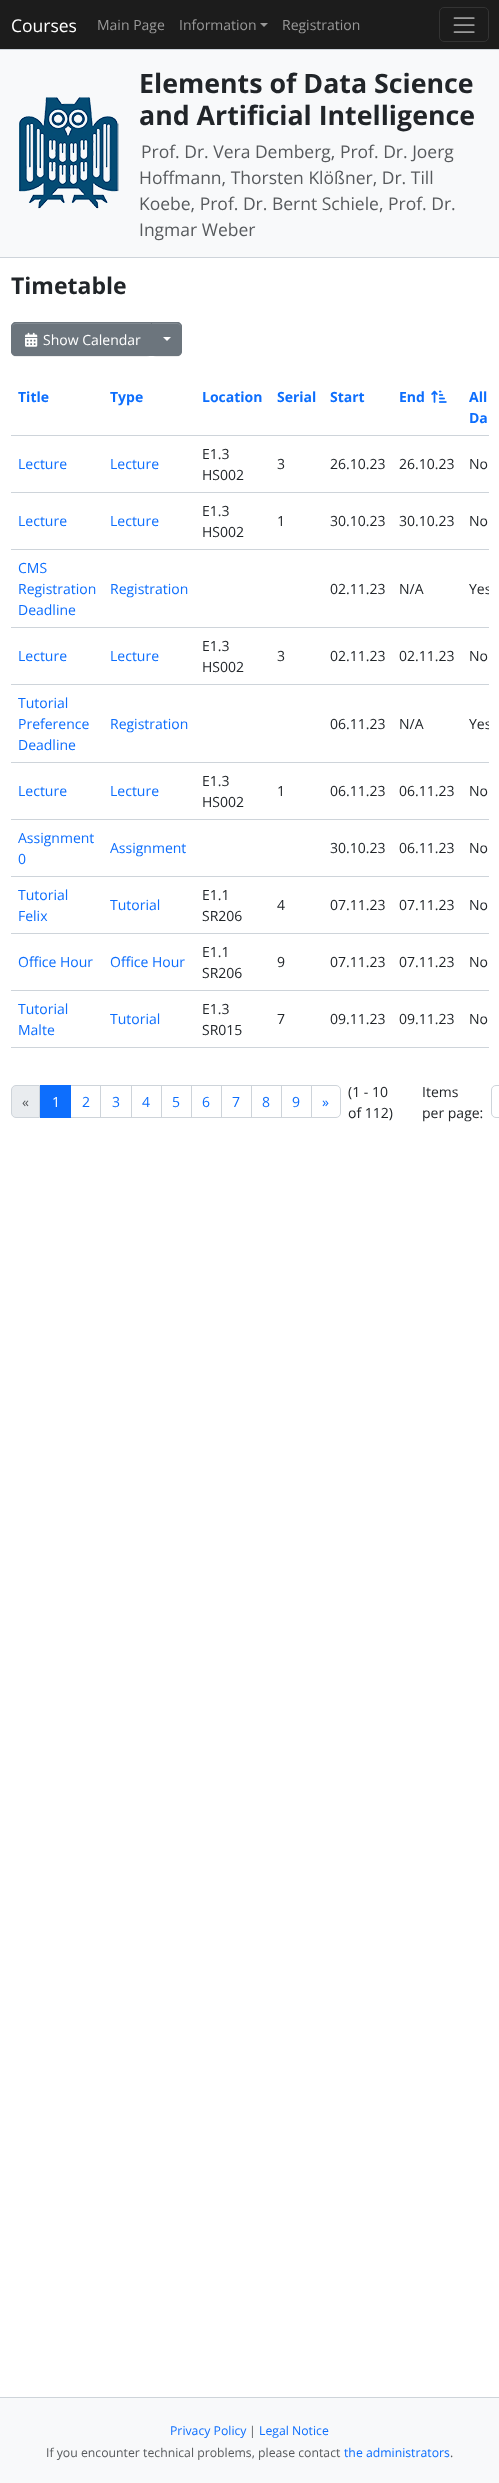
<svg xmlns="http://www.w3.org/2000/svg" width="499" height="2483">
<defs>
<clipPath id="clip1"><rect x="11" y="379" width="478" height="683"/></clipPath>
</defs>
<rect width="100%" height="100%" fill="#f8f9fa"/>
<rect width="499" height="49" fill="#1c1c1c"/>
<rect y="49" width="499" height="1" fill="#ced4da"/>
<text x="11" y="32" style="font-family:Open Sans;font-size:17.5px;fill:#fff">Courses</text>
<text x="97" y="30" style="font-family:Open Sans;font-size:14px;fill:#999">Main Page</text>
<text x="179" y="30" style="font-family:Open Sans;font-size:14px;fill:#999">Information</text>
<path d="M260 23h8l-4 4z" fill="#999"/>
<text x="282" y="30" style="font-family:Open Sans;font-size:14px;fill:#999">Registration</text>
<rect x="439.5" y="7.5" width="49" height="34" rx="4.5" fill="none" stroke="#333"/>
<image x="453" y="17" width="22" height="16" href="media/1.png"/>
<rect y="257" width="499" height="1" fill="#ced4da"/>
<image x="19" y="97" width="100" height="112" href="media/2.png"/>
<text x="139" y="93" style="font-family:Open Sans;font-size:26.75px;font-weight:bold;fill:#212529">Elements of Data Science</text>
<text x="139" y="125" style="font-family:Open Sans;font-size:26.75px;font-weight:bold;fill:#212529">and Artificial Intelligence</text>
<text x="141" y="158" style="font-family:Open Sans;font-size:17.5px;fill:#575a5d">Prof. Dr. Vera Demberg, Prof. Dr. Joerg</text>
<text x="139" y="184" style="font-family:Open Sans;font-size:17.5px;fill:#575a5d">Hoffmann, Thorsten Klößner, Dr. Till</text>
<text x="139" y="210" style="font-family:Open Sans;font-size:17.5px;fill:#575a5d">Koebe, Prof. Dr. Bernt Schiele, Prof. Dr.</text>
<text x="139" y="236" style="font-family:Open Sans;font-size:17.5px;fill:#575a5d">Ingmar Weber</text>
<rect y="258" width="499" height="2139" fill="#fff"/>
<text x="11" y="294" style="font-family:Open Sans;font-size:23px;font-weight:bold;fill:#212529">Timetable</text>
<rect x="11" y="323" width="141" height="34" rx="5" fill="#00000012" filter="blur(0.5px)"/>
<path d="M16 322h136v34h-136c-3 0-5-2-5-5v-24c0-3 2-5 5-5z" fill="#6c757d"/>
<path d="M16 324h135v-1h-135c-2 0-4 2-4 4v1c0-2 2-4 4-4z" fill="#828a91"/>
<path d="M16 322.5h135.5v33h-135.5c-2.5 0-4.5-2-4.5-4.5v-24c0-2.5 2-4.5 4.5-4.5z" fill="none" stroke="#6c757d"/>
<image x="25" y="332" width="13" height="15" href="media/3.png"/>
<text x="43" y="345" style="font-family:Open Sans;font-size:14px;fill:#fff">Show Calendar</text>
<rect x="151" y="323" width="31" height="34" rx="5" fill="#00000012" filter="blur(0.5px)"/>
<path d="M151 322h26c3 0 5 2 5 5v24c0 3-2 5-5 5h-26z" fill="#6c757d"/>
<path d="M152 324h25c2 0 4 2 4 4v-1c0-2-2-4-4-4h-25z" fill="#828a91"/>
<path d="M151.5 322.5h25.5c2.5 0 4.5 2 4.5 4.5v24c0 2.5-2 4.5-4.5 4.5h-25.5z" fill="none" stroke="#6c757d"/>
<path d="M163 337h8l-4 4z" fill="#fff"/>
<text x="18" y="402" style="font-family:Open Sans;font-size:14px;font-weight:bold;fill:#0d6efd">Title</text>
<text x="110" y="402" style="font-family:Open Sans;font-size:14px;font-weight:bold;fill:#0d6efd">Type</text>
<text x="202" y="402" style="font-family:Open Sans;font-size:14px;font-weight:bold;fill:#0d6efd">Location</text>
<text x="277" y="402" style="font-family:Open Sans;font-size:14px;font-weight:bold;fill:#0d6efd">Serial</text>
<text x="330" y="402" style="font-family:Open Sans;font-size:14px;font-weight:bold;fill:#0d6efd">Start</text>
<text x="399" y="402" style="font-family:Open Sans;font-size:14px;font-weight:bold;fill:#0d6efd">End</text>
<image x="431" y="390" width="16" height="13" href="media/4.png"/>
<rect x="11" y="435" width="478" height="1" fill="#ced4da"/>
<text x="469" y="402" style="font-family:Open Sans;font-size:14px;font-weight:bold;fill:#0d6efd">All</text>
<text x="469" y="423" style="font-family:Open Sans;font-size:14px;font-weight:bold;fill:#0d6efd">Da</text>
<text x="18" y="469" style="font-family:Open Sans;font-size:14px;fill:#0d6efd">Lecture</text>
<text x="110" y="469" style="font-family:Open Sans;font-size:14px;fill:#0d6efd">Lecture</text>
<text x="202" y="459" style="font-family:Open Sans;font-size:14px;fill:#212529">E1.3</text>
<text x="202" y="480" style="font-family:Open Sans;font-size:14px;fill:#212529">HS002</text>
<text x="277" y="469" style="font-family:Open Sans;font-size:14px;fill:#212529">3</text>
<text x="330" y="469" style="font-family:Open Sans;font-size:14px;fill:#212529">26.10.23</text>
<text x="399" y="469" style="font-family:Open Sans;font-size:14px;fill:#212529">26.10.23</text>
<rect x="11" y="492" width="478" height="1" fill="#ced4da"/>
<text x="469" y="469" style="font-family:Open Sans;font-size:14px;fill:#212529">No</text>
<text x="18" y="526" style="font-family:Open Sans;font-size:14px;fill:#0d6efd">Lecture</text>
<text x="110" y="526" style="font-family:Open Sans;font-size:14px;fill:#0d6efd">Lecture</text>
<text x="202" y="516" style="font-family:Open Sans;font-size:14px;fill:#212529">E1.3</text>
<text x="202" y="537" style="font-family:Open Sans;font-size:14px;fill:#212529">HS002</text>
<text x="277" y="526" style="font-family:Open Sans;font-size:14px;fill:#212529">1</text>
<text x="330" y="526" style="font-family:Open Sans;font-size:14px;fill:#212529">30.10.23</text>
<text x="399" y="526" style="font-family:Open Sans;font-size:14px;fill:#212529">30.10.23</text>
<rect x="11" y="549" width="478" height="1" fill="#ced4da"/>
<text x="469" y="526" style="font-family:Open Sans;font-size:14px;fill:#212529">No</text>
<text x="18" y="573" style="font-family:Open Sans;font-size:14px;fill:#0d6efd">CMS</text>
<text x="18" y="594" style="font-family:Open Sans;font-size:14px;fill:#0d6efd">Registration</text>
<text x="18" y="615" style="font-family:Open Sans;font-size:14px;fill:#0d6efd">Deadline</text>
<text x="110" y="594" style="font-family:Open Sans;font-size:14px;fill:#0d6efd">Registration</text>
<text x="330" y="594" style="font-family:Open Sans;font-size:14px;fill:#212529">02.11.23</text>
<text x="399" y="594" style="font-family:Open Sans;font-size:14px;fill:#212529">N/A</text>
<rect x="11" y="627" width="478" height="1" fill="#ced4da"/>
<g clip-path="url(#clip1)">
<text x="469" y="594" style="font-family:Open Sans;font-size:14px;fill:#212529">Yes</text>
</g>
<text x="18" y="661" style="font-family:Open Sans;font-size:14px;fill:#0d6efd">Lecture</text>
<text x="110" y="661" style="font-family:Open Sans;font-size:14px;fill:#0d6efd">Lecture</text>
<text x="202" y="651" style="font-family:Open Sans;font-size:14px;fill:#212529">E1.3</text>
<text x="202" y="672" style="font-family:Open Sans;font-size:14px;fill:#212529">HS002</text>
<text x="277" y="661" style="font-family:Open Sans;font-size:14px;fill:#212529">3</text>
<text x="330" y="661" style="font-family:Open Sans;font-size:14px;fill:#212529">02.11.23</text>
<text x="399" y="661" style="font-family:Open Sans;font-size:14px;fill:#212529">02.11.23</text>
<rect x="11" y="684" width="478" height="1" fill="#ced4da"/>
<text x="469" y="661" style="font-family:Open Sans;font-size:14px;fill:#212529">No</text>
<text x="18" y="708" style="font-family:Open Sans;font-size:14px;fill:#0d6efd">Tutorial</text>
<text x="18" y="729" style="font-family:Open Sans;font-size:14px;fill:#0d6efd">Preference</text>
<text x="18" y="750" style="font-family:Open Sans;font-size:14px;fill:#0d6efd">Deadline</text>
<text x="110" y="729" style="font-family:Open Sans;font-size:14px;fill:#0d6efd">Registration</text>
<text x="330" y="729" style="font-family:Open Sans;font-size:14px;fill:#212529">06.11.23</text>
<text x="399" y="729" style="font-family:Open Sans;font-size:14px;fill:#212529">N/A</text>
<rect x="11" y="762" width="478" height="1" fill="#ced4da"/>
<g clip-path="url(#clip1)">
<text x="469" y="729" style="font-family:Open Sans;font-size:14px;fill:#212529">Yes</text>
</g>
<text x="18" y="796" style="font-family:Open Sans;font-size:14px;fill:#0d6efd">Lecture</text>
<text x="110" y="796" style="font-family:Open Sans;font-size:14px;fill:#0d6efd">Lecture</text>
<text x="202" y="786" style="font-family:Open Sans;font-size:14px;fill:#212529">E1.3</text>
<text x="202" y="807" style="font-family:Open Sans;font-size:14px;fill:#212529">HS002</text>
<text x="277" y="796" style="font-family:Open Sans;font-size:14px;fill:#212529">1</text>
<text x="330" y="796" style="font-family:Open Sans;font-size:14px;fill:#212529">06.11.23</text>
<text x="399" y="796" style="font-family:Open Sans;font-size:14px;fill:#212529">06.11.23</text>
<rect x="11" y="819" width="478" height="1" fill="#ced4da"/>
<text x="469" y="796" style="font-family:Open Sans;font-size:14px;fill:#212529">No</text>
<text x="18" y="843" style="font-family:Open Sans;font-size:14px;fill:#0d6efd">Assignment</text>
<text x="18" y="864" style="font-family:Open Sans;font-size:14px;fill:#0d6efd">0</text>
<text x="110" y="853" style="font-family:Open Sans;font-size:14px;fill:#0d6efd">Assignment</text>
<text x="330" y="853" style="font-family:Open Sans;font-size:14px;fill:#212529">30.10.23</text>
<text x="399" y="853" style="font-family:Open Sans;font-size:14px;fill:#212529">06.11.23</text>
<rect x="11" y="876" width="478" height="1" fill="#ced4da"/>
<text x="469" y="853" style="font-family:Open Sans;font-size:14px;fill:#212529">No</text>
<text x="18" y="900" style="font-family:Open Sans;font-size:14px;fill:#0d6efd">Tutorial</text>
<text x="18" y="921" style="font-family:Open Sans;font-size:14px;fill:#0d6efd">Felix</text>
<text x="110" y="910" style="font-family:Open Sans;font-size:14px;fill:#0d6efd">Tutorial</text>
<text x="202" y="900" style="font-family:Open Sans;font-size:14px;fill:#212529">E1.1</text>
<text x="202" y="921" style="font-family:Open Sans;font-size:14px;fill:#212529">SR206</text>
<text x="277" y="910" style="font-family:Open Sans;font-size:14px;fill:#212529">4</text>
<text x="330" y="910" style="font-family:Open Sans;font-size:14px;fill:#212529">07.11.23</text>
<text x="399" y="910" style="font-family:Open Sans;font-size:14px;fill:#212529">07.11.23</text>
<rect x="11" y="933" width="478" height="1" fill="#ced4da"/>
<text x="469" y="910" style="font-family:Open Sans;font-size:14px;fill:#212529">No</text>
<text x="18" y="967" style="font-family:Open Sans;font-size:14px;fill:#0d6efd">Office Hour</text>
<text x="110" y="967" style="font-family:Open Sans;font-size:14px;fill:#0d6efd">Office Hour</text>
<text x="202" y="957" style="font-family:Open Sans;font-size:14px;fill:#212529">E1.1</text>
<text x="202" y="978" style="font-family:Open Sans;font-size:14px;fill:#212529">SR206</text>
<text x="277" y="967" style="font-family:Open Sans;font-size:14px;fill:#212529">9</text>
<text x="330" y="967" style="font-family:Open Sans;font-size:14px;fill:#212529">07.11.23</text>
<text x="399" y="967" style="font-family:Open Sans;font-size:14px;fill:#212529">07.11.23</text>
<rect x="11" y="990" width="478" height="1" fill="#ced4da"/>
<text x="469" y="967" style="font-family:Open Sans;font-size:14px;fill:#212529">No</text>
<text x="18" y="1014" style="font-family:Open Sans;font-size:14px;fill:#0d6efd">Tutorial</text>
<text x="18" y="1035" style="font-family:Open Sans;font-size:14px;fill:#0d6efd">Malte</text>
<text x="110" y="1024" style="font-family:Open Sans;font-size:14px;fill:#0d6efd">Tutorial</text>
<text x="202" y="1014" style="font-family:Open Sans;font-size:14px;fill:#212529">E1.3</text>
<text x="202" y="1035" style="font-family:Open Sans;font-size:14px;fill:#212529">SR015</text>
<text x="277" y="1024" style="font-family:Open Sans;font-size:14px;fill:#212529">7</text>
<text x="330" y="1024" style="font-family:Open Sans;font-size:14px;fill:#212529">09.11.23</text>
<text x="399" y="1024" style="font-family:Open Sans;font-size:14px;fill:#212529">09.11.23</text>
<rect x="11" y="1047" width="478" height="1" fill="#ced4da"/>
<text x="469" y="1024" style="font-family:Open Sans;font-size:14px;fill:#212529">No</text>
<path d="M16 1085.5h23.5v32h-23.5c-2.5 0-4.5-2-4.5-4.5v-23c0-2.5 2-4.5 4.5-4.5z" fill="#e9ecef" stroke="#ced4da"/>
<text x="22" y="1107" style="font-family:Open Sans;font-size:14px;fill:#575a5d">«</text>
<rect x="70.5" y="1085.5" width="30" height="32" fill="none" stroke="#ced4da"/>
<rect x="40" y="1085" width="31" height="33" fill="#0d6efd"/>
<text x="52" y="1107" style="font-family:Open Sans;font-size:14px;fill:#fff">1</text>
<text x="82" y="1107" style="font-family:Open Sans;font-size:14px;fill:#0d6efd">2</text>
<rect x="100.5" y="1085.5" width="31" height="32" fill="none" stroke="#ced4da"/>
<text x="112" y="1107" style="font-family:Open Sans;font-size:14px;fill:#0d6efd">3</text>
<rect x="131.5" y="1085.5" width="30" height="32" fill="none" stroke="#ced4da"/>
<text x="142" y="1107" style="font-family:Open Sans;font-size:14px;fill:#0d6efd">4</text>
<rect x="161.5" y="1085.5" width="30" height="32" fill="none" stroke="#ced4da"/>
<text x="172" y="1107" style="font-family:Open Sans;font-size:14px;fill:#0d6efd">5</text>
<rect x="191.5" y="1085.5" width="30" height="32" fill="none" stroke="#ced4da"/>
<text x="202" y="1107" style="font-family:Open Sans;font-size:14px;fill:#0d6efd">6</text>
<rect x="221.5" y="1085.5" width="30" height="32" fill="none" stroke="#ced4da"/>
<text x="232" y="1107" style="font-family:Open Sans;font-size:14px;fill:#0d6efd">7</text>
<rect x="251.5" y="1085.5" width="30" height="32" fill="none" stroke="#ced4da"/>
<text x="262" y="1107" style="font-family:Open Sans;font-size:14px;fill:#0d6efd">8</text>
<rect x="281.5" y="1085.5" width="30" height="32" fill="none" stroke="#ced4da"/>
<text x="292" y="1107" style="font-family:Open Sans;font-size:14px;fill:#0d6efd">9</text>
<path d="M311.5 1085.5h24.5c2.5 0 4.5 2 4.5 4.5v23c0 2.5-2 4.5-4.5 4.5h-24.5z" fill="#fff" stroke="#ced4da"/>
<text x="322" y="1107" style="font-family:Open Sans;font-size:14px;fill:#0d6efd">»</text>
<text x="348" y="1097" style="font-family:Open Sans;font-size:14px;fill:#212529">(1 - 10</text>
<text x="348" y="1118" style="font-family:Open Sans;font-size:14px;fill:#212529">of 112)</text>
<text x="422" y="1097" style="font-family:Open Sans;font-size:14px;fill:#212529">Items</text>
<text x="422" y="1118" style="font-family:Open Sans;font-size:14px;fill:#212529">per page:</text>
<path d="M496 1085.5h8.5v32h-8.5c-2.5 0-4.5-2-4.5-4.5v-23c0-2.5 2-4.5 4.5-4.5z" fill="none" stroke="#ced4da"/>
<rect y="2397" width="499" height="1" fill="#ced4da"/>
<text x="170" y="2435" style="font-family:Open Sans;font-size:12.25px;fill:#0d6efd">Privacy Policy</text>
<text x="249" y="2435" style="font-family:Open Sans;font-size:12.25px;fill:#575a5d">|</text>
<text x="259" y="2435" style="font-family:Open Sans;font-size:12.25px;fill:#0d6efd">Legal Notice</text>
<text x="46" y="2457" style="font-family:Open Sans;font-size:12.25px;fill:#575a5d">If you encounter technical problems, please contact</text>
<text x="344" y="2457" style="font-family:Open Sans;font-size:12.25px;fill:#0d6efd">the administrators</text>
<text x="450" y="2457" style="font-family:Open Sans;font-size:12.25px;fill:#575a5d">.</text>
</svg>
